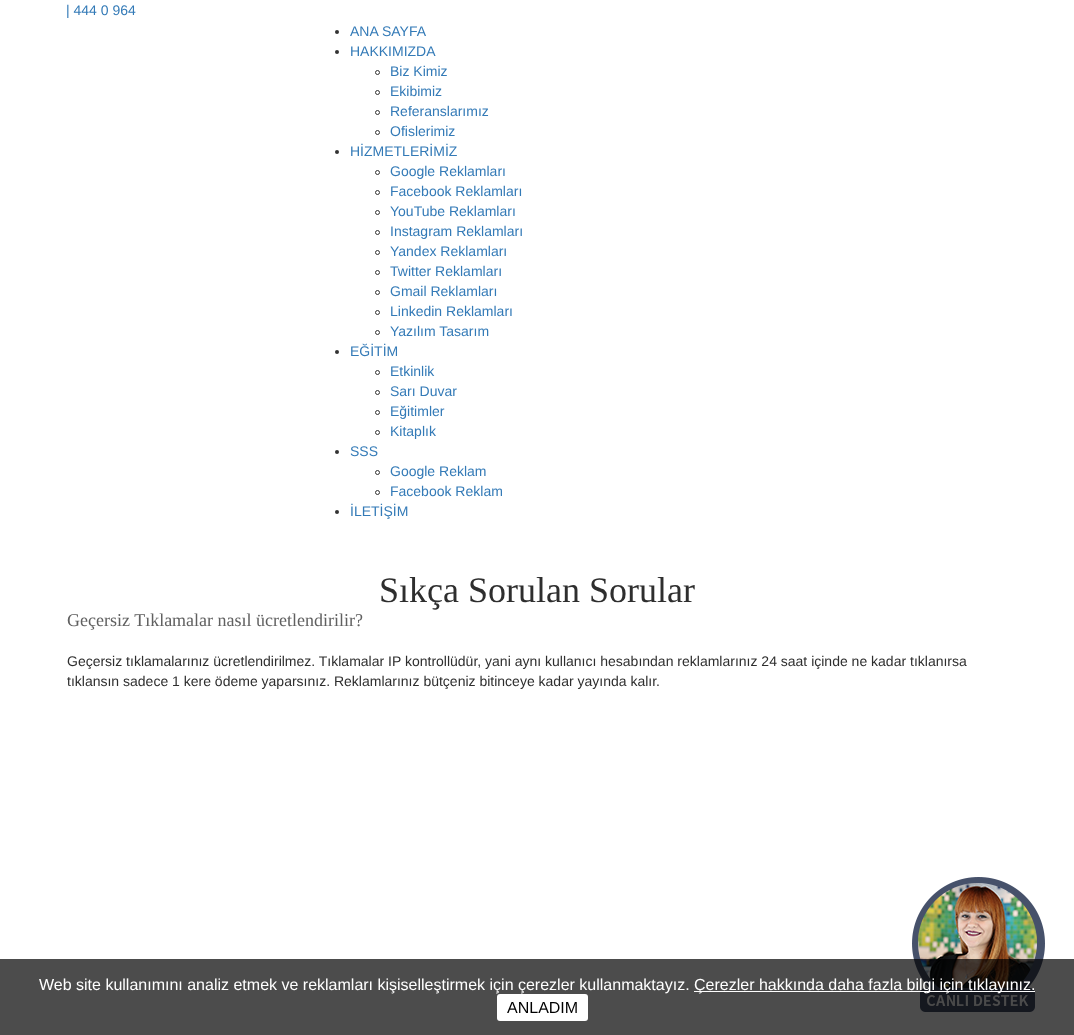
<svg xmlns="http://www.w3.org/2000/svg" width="1074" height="1035">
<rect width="100%" height="100%" fill="#fff"/>
<text x="66" y="15" style="font-family:Liberation Sans;font-size:14px;fill:#337ab7">| 444 0 964</text>
<circle cx="337" cy="32" r="2" fill="#333"/>
<text x="350" y="36" style="font-family:Liberation Sans;font-size:14px;fill:#337ab7">ANA SAYFA</text>
<circle cx="337" cy="52" r="2" fill="#333"/>
<text x="350" y="56" style="font-family:Liberation Sans;font-size:14px;fill:#337ab7">HAKKIMIZDA</text>
<circle cx="377.5" cy="72.5" r="2" fill="none" stroke="#333"/>
<text x="390" y="76" style="font-family:Liberation Sans;font-size:14px;fill:#337ab7">Biz Kimiz</text>
<circle cx="377.5" cy="92.5" r="2" fill="none" stroke="#333"/>
<text x="390" y="96" style="font-family:Liberation Sans;font-size:14px;fill:#337ab7">Ekibimiz</text>
<circle cx="377.5" cy="112.5" r="2" fill="none" stroke="#333"/>
<text x="390" y="116" style="font-family:Liberation Sans;font-size:14px;fill:#337ab7">Referanslarımız</text>
<circle cx="377.5" cy="132.5" r="2" fill="none" stroke="#333"/>
<text x="390" y="136" style="font-family:Liberation Sans;font-size:14px;fill:#337ab7">Ofislerimiz</text>
<circle cx="337" cy="152" r="2" fill="#333"/>
<text x="350" y="156" style="font-family:Liberation Sans;font-size:14px;fill:#337ab7">HİZMETLERİMİZ</text>
<circle cx="377.5" cy="172.5" r="2" fill="none" stroke="#333"/>
<text x="390" y="176" style="font-family:Liberation Sans;font-size:14px;fill:#337ab7">Google Reklamları</text>
<circle cx="377.5" cy="192.5" r="2" fill="none" stroke="#333"/>
<text x="390" y="196" style="font-family:Liberation Sans;font-size:14px;fill:#337ab7">Facebook Reklamları</text>
<circle cx="377.5" cy="212.5" r="2" fill="none" stroke="#333"/>
<text x="390" y="216" style="font-family:Liberation Sans;font-size:14px;fill:#337ab7">YouTube Reklamları</text>
<circle cx="377.5" cy="232.5" r="2" fill="none" stroke="#333"/>
<text x="390" y="236" style="font-family:Liberation Sans;font-size:14px;fill:#337ab7">Instagram Reklamları</text>
<circle cx="377.5" cy="252.5" r="2" fill="none" stroke="#333"/>
<text x="390" y="256" style="font-family:Liberation Sans;font-size:14px;fill:#337ab7">Yandex Reklamları</text>
<circle cx="377.5" cy="272.5" r="2" fill="none" stroke="#333"/>
<text x="390" y="276" style="font-family:Liberation Sans;font-size:14px;fill:#337ab7">Twitter Reklamları</text>
<circle cx="377.5" cy="292.5" r="2" fill="none" stroke="#333"/>
<text x="390" y="296" style="font-family:Liberation Sans;font-size:14px;fill:#337ab7">Gmail Reklamları</text>
<circle cx="377.5" cy="312.5" r="2" fill="none" stroke="#333"/>
<text x="390" y="316" style="font-family:Liberation Sans;font-size:14px;fill:#337ab7">Linkedin Reklamları</text>
<circle cx="377.5" cy="332.5" r="2" fill="none" stroke="#333"/>
<text x="390" y="336" style="font-family:Liberation Sans;font-size:14px;fill:#337ab7">Yazılım Tasarım</text>
<circle cx="337" cy="352" r="2" fill="#333"/>
<text x="350" y="356" style="font-family:Liberation Sans;font-size:14px;fill:#337ab7">EĞİTİM</text>
<circle cx="377.5" cy="372.5" r="2" fill="none" stroke="#333"/>
<text x="390" y="376" style="font-family:Liberation Sans;font-size:14px;fill:#337ab7">Etkinlik</text>
<circle cx="377.5" cy="392.5" r="2" fill="none" stroke="#333"/>
<text x="390" y="396" style="font-family:Liberation Sans;font-size:14px;fill:#337ab7">Sarı Duvar</text>
<circle cx="377.5" cy="412.5" r="2" fill="none" stroke="#333"/>
<text x="390" y="416" style="font-family:Liberation Sans;font-size:14px;fill:#337ab7">Eğitimler</text>
<circle cx="377.5" cy="432.5" r="2" fill="none" stroke="#333"/>
<text x="390" y="436" style="font-family:Liberation Sans;font-size:14px;fill:#337ab7">Kitaplık</text>
<circle cx="337" cy="452" r="2" fill="#333"/>
<text x="350" y="456" style="font-family:Liberation Sans;font-size:14px;fill:#337ab7">SSS</text>
<circle cx="377.5" cy="472.5" r="2" fill="none" stroke="#333"/>
<text x="390" y="476" style="font-family:Liberation Sans;font-size:14px;fill:#337ab7">Google Reklam</text>
<circle cx="377.5" cy="492.5" r="2" fill="none" stroke="#333"/>
<text x="390" y="496" style="font-family:Liberation Sans;font-size:14px;fill:#337ab7">Facebook Reklam</text>
<circle cx="337" cy="512" r="2" fill="#333"/>
<text x="350" y="516" style="font-family:Liberation Sans;font-size:14px;fill:#337ab7">İLETİŞİM</text>
<text x="379" y="602" style="font-family:Liberation Serif;font-size:36px;fill:#2e2e2e">Sıkça Sorulan Sorular</text>
<text x="67" y="626" style="font-family:Liberation Serif;font-size:18px;fill:#606060">Geçersiz Tıklamalar nasıl ücretlendirilir?</text>
<text x="67" y="666" style="font-family:Liberation Sans;font-size:14px;fill:#2e2e2e">Geçersiz tıklamalarınız ücretlendirilmez. Tıklamalar IP kontrollüdür, yani aynı kullanıcı hesabından reklamlarınız 24 saat içinde ne kadar tıklanırsa</text>
<text x="67" y="686" style="font-family:Liberation Sans;font-size:14px;fill:#2e2e2e">tıklansın sadece 1 kere ödeme yaparsınız. Reklamlarınız bütçeniz bitinceye kadar yayında kalır.</text>
<image x="912" y="877" width="133" height="135" href="media/1.png"/>
<rect y="959" width="1074" height="76" fill="#000000b3"/>
<text x="39" y="990" style="font-family:Liberation Sans;font-size:16px;fill:#fff">Web site kullanımını analiz etmek ve reklamları kişiselleştirmek için çerezler kullanmaktayız.</text>
<rect x="694" y="991" width="341" height="1" fill="#fff"/>
<text x="694" y="990" style="font-family:Liberation Sans;font-size:16px;fill:#fff">Çerezler hakkında daha fazla bilgi için tıklayınız.</text>
<rect x="497" y="994" width="91" height="27" rx="3" fill="#fff"/>
<text x="507" y="1013" style="font-family:Liberation Sans;font-size:16px;fill:#000">ANLADIM</text>
</svg>
